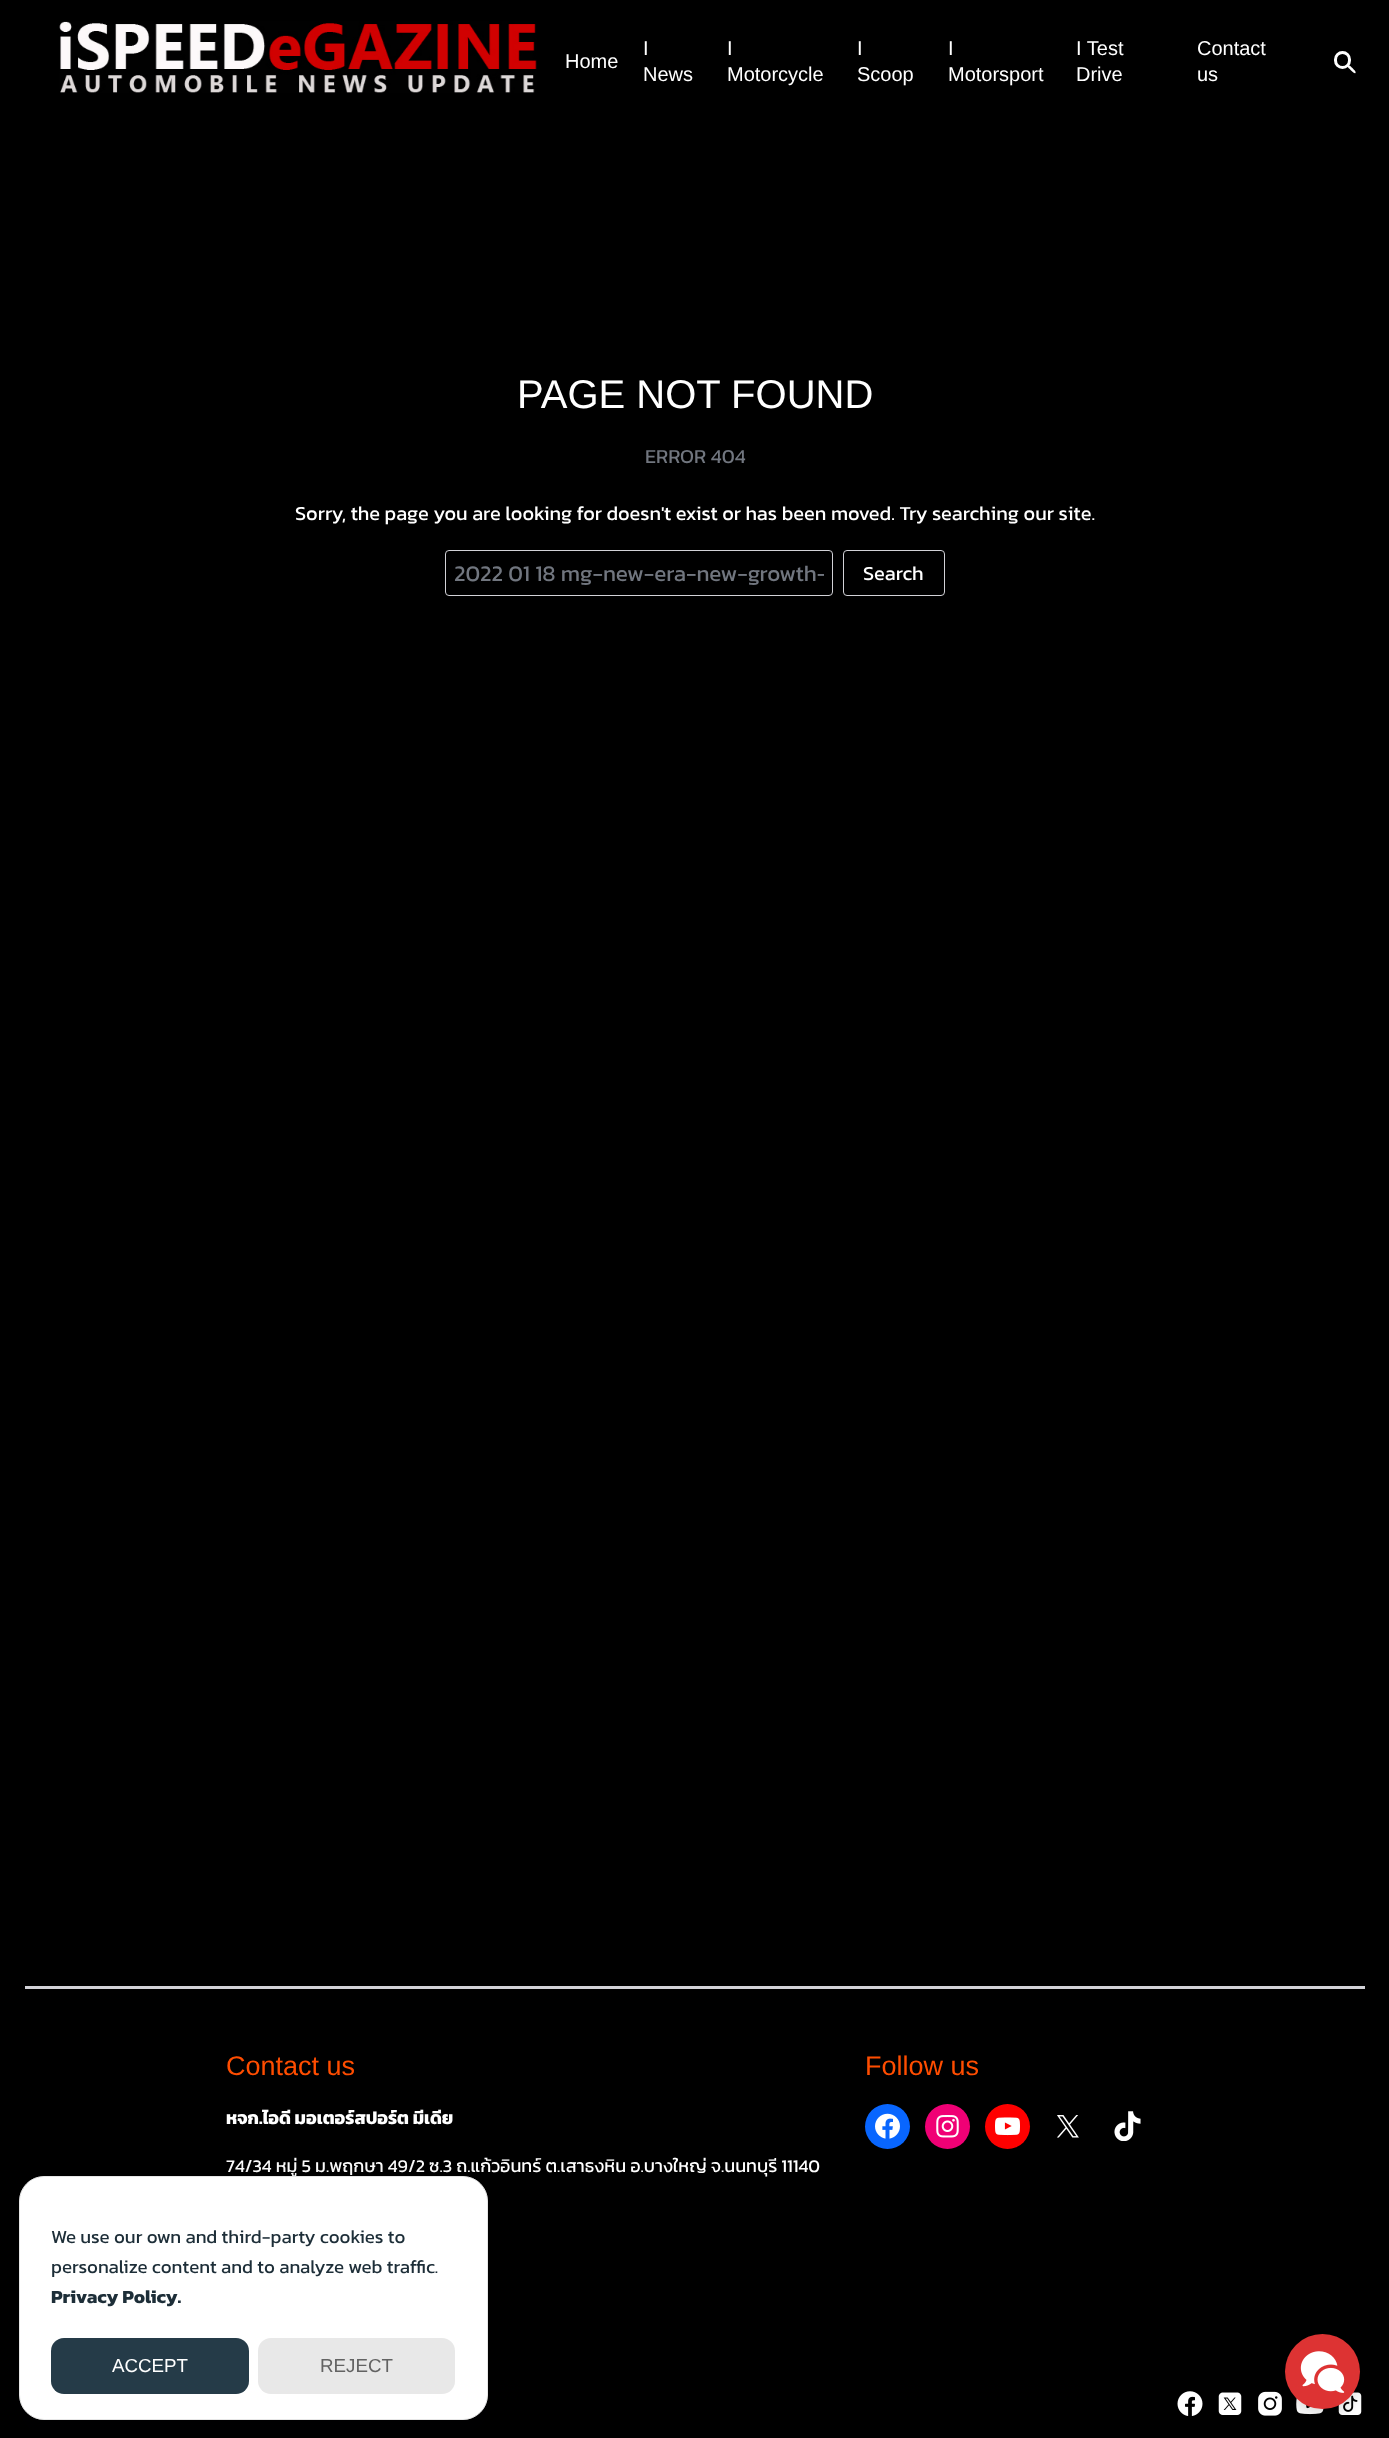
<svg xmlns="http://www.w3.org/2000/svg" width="1389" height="2438">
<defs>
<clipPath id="clip1"><rect x="454" y="559" width="370" height="29"/></clipPath>
</defs>
<rect width="100%" height="100%" fill="#000"/>
<image x="59" y="21" width="478" height="72" href="media/1.png"/>
<text x="565" y="68" style="font-family:Liberation Sans;font-size:20px;fill:#fff">Home</text>
<text x="643" y="55" style="font-family:Liberation Sans;font-size:20px;fill:#fff">I</text>
<text x="643" y="81" style="font-family:Liberation Sans;font-size:20px;fill:#fff">News</text>
<text x="727" y="55" style="font-family:Liberation Sans;font-size:20px;fill:#fff">I</text>
<text x="727" y="81" style="font-family:Liberation Sans;font-size:20px;fill:#fff">Motorcycle</text>
<text x="857" y="55" style="font-family:Liberation Sans;font-size:20px;fill:#fff">I</text>
<text x="857" y="81" style="font-family:Liberation Sans;font-size:20px;fill:#fff">Scoop</text>
<text x="948" y="55" style="font-family:Liberation Sans;font-size:20px;fill:#fff">I</text>
<text x="948" y="81" style="font-family:Liberation Sans;font-size:20px;fill:#fff">Motorsport</text>
<text x="1076" y="55" style="font-family:Liberation Sans;font-size:20px;fill:#fff">I Test</text>
<text x="1076" y="81" style="font-family:Liberation Sans;font-size:20px;fill:#fff">Drive</text>
<text x="1197" y="55" style="font-family:Liberation Sans;font-size:20px;fill:#fff">Contact</text>
<text x="1197" y="81" style="font-family:Liberation Sans;font-size:20px;fill:#fff">us</text>
<path d="M1348 65.5c1.5-1.5 3.5 2 4.5 2.5c.5 1 4 3.5 3 5c-1.5 1-4-2.5-5-3c-.5-1-4-3-2.5-4.5z" fill="#fff"/>
<rect x="1335.5" y="52.5" width="14" height="15" rx="7" fill="none" stroke="#fff" stroke-width="3"/>
<text x="517" y="408" style="font-family:Liberation Sans;font-size:40px;fill:#fff">PAGE NOT FOUND</text>
<text x="645" y="463" style="font-family:Kanit;font-size:20px;fill:#71767f">ERROR 404</text>
<text x="295" y="520" style="font-family:Kanit;font-size:20px;fill:#fff">Sorry, the page you are looking for doesn't exist or has been moved. Try searching our site.</text>
<rect x="445.5" y="550.5" width="387" height="45" rx="3.5" fill="none" stroke="#d2d2d7"/>
<g clip-path="url(#clip1)">
<text x="454" y="581" style="font-family:Kanit;font-size:22.5px;fill:#71767f">2022 01 18 mg-new-era-new-growth-</text>
</g>
<rect x="843.5" y="550.5" width="101" height="45" rx="3.5" fill="none" stroke="#d2d2d7"/>
<text x="863" y="580" style="font-family:Kanit;font-size:20px;fill:#fff">Search</text>
<rect x="25" y="1986" width="1340" height="3" fill="#d2d2d7"/>
<text x="226" y="2075" style="font-family:Liberation Sans;font-size:27px;fill:#ff4d00">Contact us</text>
<text x="226" y="2124" style="font-family:Kanit;font-size:18px;font-weight:bold;fill:#fff">หจก.ไอดี มอเตอร์สปอร์ต มีเดีย</text>
<text x="226" y="2172" style="font-family:Kanit;font-size:18px;fill:#fff">74/34 หมู่ 5 ม.พฤกษา 49/2 ซ.3 ถ.แก้วอินทร์ ต.เสาธงหิน อ.บางใหญ่ จ.นนทบุรี 11140</text>
<text x="865" y="2075" style="font-family:Liberation Sans;font-size:27px;fill:#ff4d00">Follow us</text>
<circle cx="887.5" cy="2126.5" r="22.5" fill="#0866ff"/>
<image x="875" y="2113" width="25" height="26" href="media/2.png"/>
<circle cx="947.5" cy="2126.5" r="22.5" fill="#f00075"/>
<image x="936" y="2115" width="23" height="23" href="media/3.png"/>
<circle cx="1007.5" cy="2126.5" r="22.5" fill="#f00"/>
<image x="995" y="2117" width="25" height="19" href="media/4.png"/>
<image x="1057" y="2115" width="22" height="23" href="media/5.png"/>
<image x="1114" y="2111" width="27" height="30" href="media/6.png"/>
<image x="1258" y="2391" width="24" height="25" href="media/10.png"/>
<image x="1296" y="2398" width="28" height="17" href="media/11.png"/>
<image x="1338" y="2392" width="24" height="23" href="media/12.png"/>
<rect x="1285" y="2339" width="75" height="75" rx="37.5" fill="#00000026" filter="blur(7.5px)"/>
<circle cx="1322.5" cy="2371.5" r="37.5" fill="#d33"/>
<image x="1300" y="2351" width="45" height="42" href="media/7.png"/>
<image x="1177" y="2391" width="26" height="25" href="media/8.png"/>
<image x="1218" y="2392" width="24" height="23" href="media/9.png"/>
<rect x="19" y="2189" width="469" height="244" rx="25" fill="#02020333" filter="blur(19px)"/>
<rect x="19.5" y="2176.5" width="468" height="243" rx="24.5" fill="#fff" stroke="#e6e6e6"/>
<text x="51" y="2243" style="font-family:Kanit;font-size:18.75px;fill:#1d2e38">We use our own and third-party cookies to</text>
<text x="51" y="2273" style="font-family:Kanit;font-size:18.75px;fill:#1d2e38">personalize content and to analyze web traffic.</text>
<text x="51" y="2303" style="font-family:Kanit;font-size:18.75px;font-weight:bold;fill:#1d2e38">Privacy Policy.</text>
<rect x="51" y="2338" width="198" height="56" rx="13" fill="#253b48"/>
<text x="112" y="2372" style="font-family:Liberation Sans;font-size:18.75px;fill:#fff">ACCEPT</text>
<rect x="258" y="2338" width="197" height="56" rx="13" fill="#e8e8e8"/>
<text x="320" y="2372" style="font-family:Liberation Sans;font-size:18.75px;fill:#636363">REJECT</text>
</svg>
